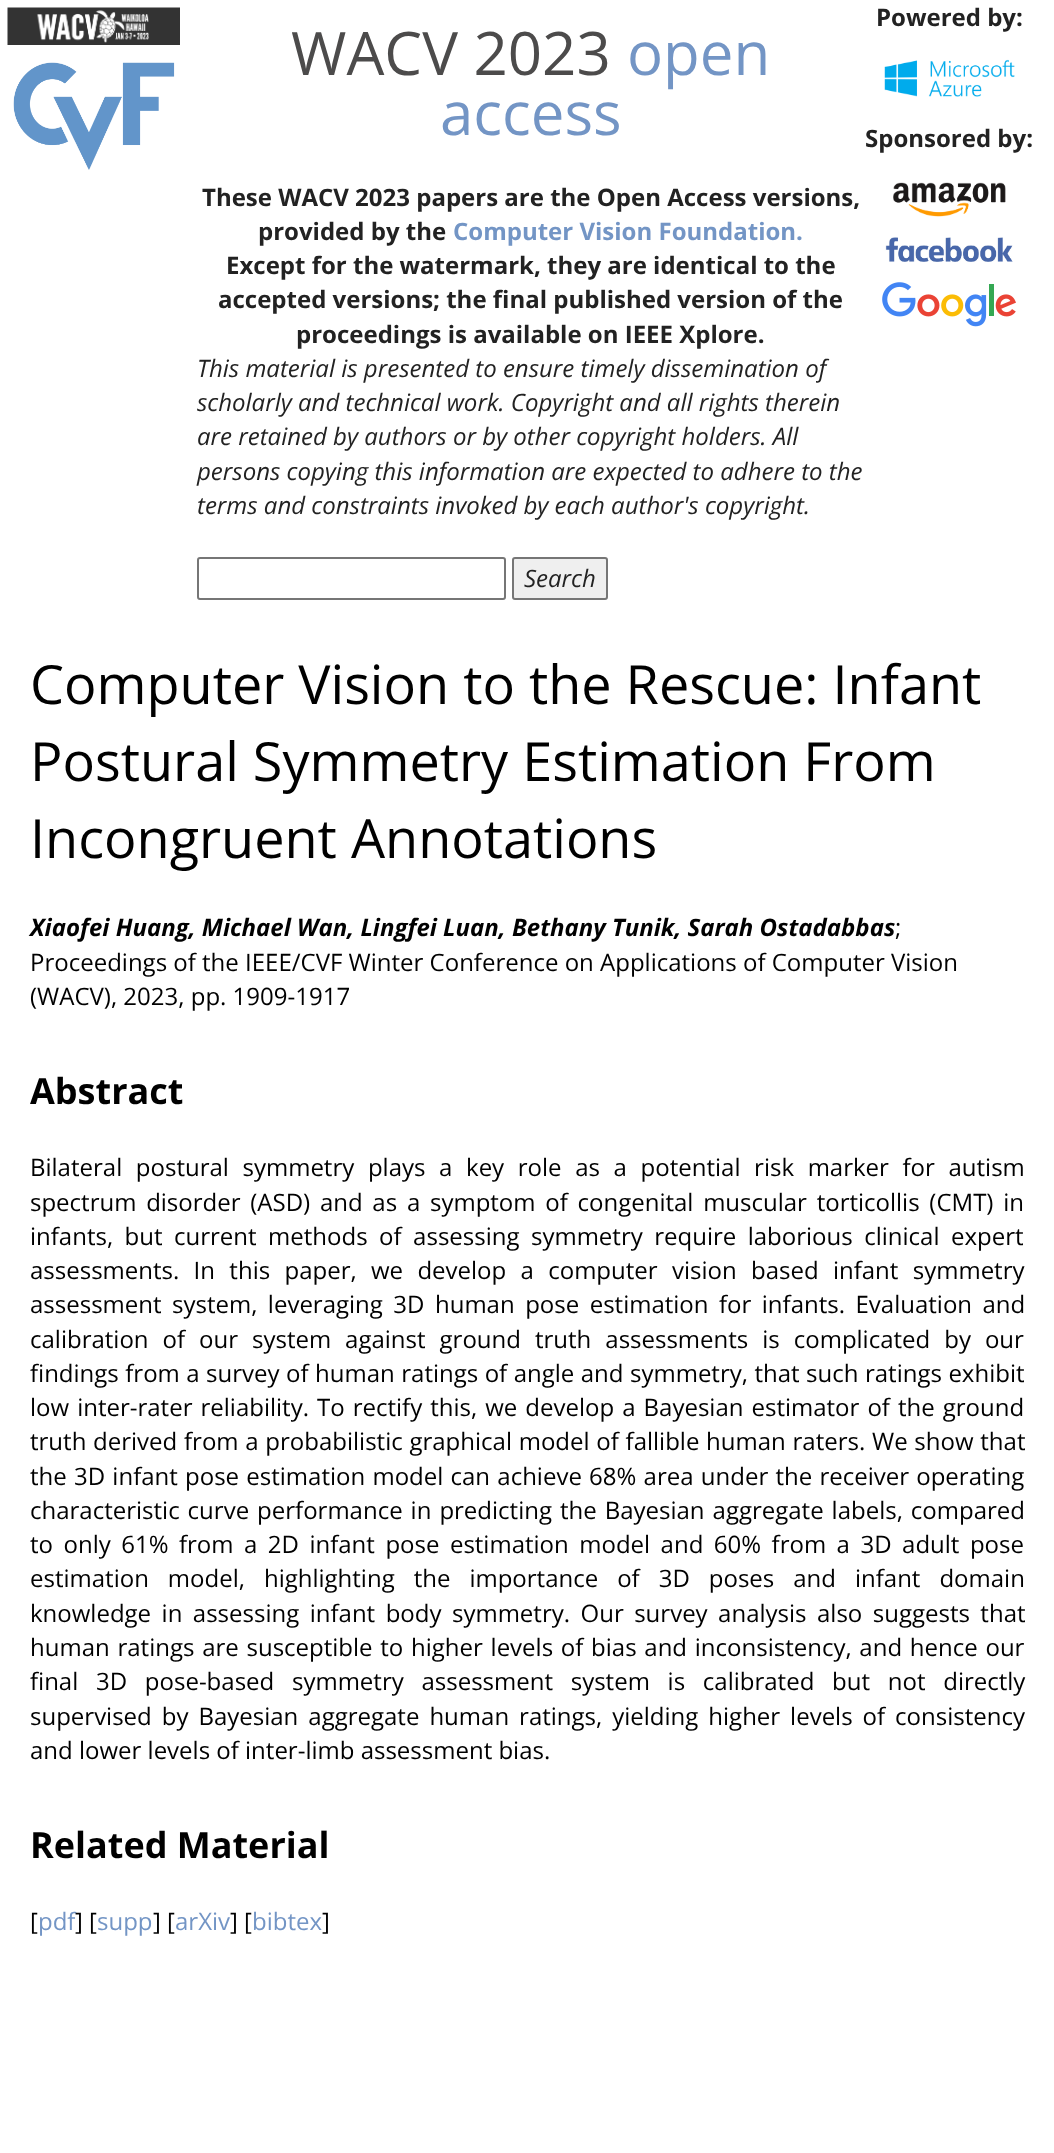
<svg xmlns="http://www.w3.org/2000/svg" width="1054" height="2153">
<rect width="100%" height="100%" fill="#fff"/>
<image x="7" y="7" width="173" height="38" href="media/1.png"/>
<image x="13" y="62" width="162" height="108" href="media/2.png"/>
<text x="291" y="75" style="font-family:Open Sans;font-size:60px;fill:#4c4b4b">WACV 2023</text>
<text x="627" y="75" style="font-family:Open Sans;font-size:60px;fill:#7395c5">open</text>
<text x="440" y="135" style="font-family:Open Sans;font-size:60px;fill:#7395c5">access</text>
<text x="202" y="206" style="font-family:Open Sans;font-size:24px;font-weight:bold;fill:#222">These WACV 2023 papers are the Open Access versions,</text>
<text x="258" y="240" style="font-family:Open Sans;font-size:24px;font-weight:bold;fill:#222">provided by the</text>
<text x="453" y="240" style="font-family:Open Sans;font-size:24px;font-weight:bold;fill:#7395c5">Computer Vision Foundation.</text>
<text x="226" y="274" style="font-family:Open Sans;font-size:24px;font-weight:bold;fill:#222">Except for the watermark, they are identical to the</text>
<text x="218" y="308" style="font-family:Open Sans;font-size:24px;font-weight:bold;fill:#222">accepted versions; the final published version of the</text>
<text x="296" y="343" style="font-family:Open Sans;font-size:24px;font-weight:bold;fill:#222">proceedings is available on IEEE Xplore.</text>
<text x="197" y="377" style="font-family:Open Sans;font-size:24px;font-style:italic;fill:#222">This material is presented to ensure timely dissemination of</text>
<text x="197" y="411" style="font-family:Open Sans;font-size:24px;font-style:italic;fill:#222">scholarly and technical work. Copyright and all rights therein</text>
<text x="197" y="445" style="font-family:Open Sans;font-size:24px;font-style:italic;fill:#222">are retained by authors or by other copyright holders. All</text>
<text x="197" y="480" style="font-family:Open Sans;font-size:24px;font-style:italic;fill:#222">persons copying this information are expected to adhere to the</text>
<text x="197" y="514" style="font-family:Open Sans;font-size:24px;font-style:italic;fill:#222">terms and constraints invoked by each author's copyright.</text>
<rect x="198" y="558" width="307" height="41" rx="2" fill="none" stroke="#767676" stroke-width="2"/>
<rect x="513" y="558" width="94" height="41" rx="2" fill="#efefef" stroke="#767676" stroke-width="2"/>
<text x="524" y="587" style="font-family:Open Sans;font-size:24px;font-style:italic;fill:#222">Search</text>
<text x="876" y="26" style="font-family:Open Sans;font-size:24px;font-weight:bold;fill:#222">Powered by:</text>
<image x="884" y="59" width="131" height="38" href="media/3.png"/>
<text x="865" y="147" style="font-family:Open Sans;font-size:24px;font-weight:bold;fill:#222">Sponsored by:</text>
<image x="893" y="182" width="113" height="35" href="media/4.png"/>
<image x="885" y="237" width="128" height="25" href="media/5.png"/>
<image x="882" y="282" width="134" height="45" href="media/6.png"/>
<text x="30" y="704" style="font-family:Open Sans;font-size:54px;fill:#000">Computer Vision to the Rescue: Infant</text>
<text x="30" y="781" style="font-family:Open Sans;font-size:54px;fill:#000">Postural Symmetry Estimation From</text>
<text x="30" y="858" style="font-family:Open Sans;font-size:54px;fill:#000">Incongruent Annotations</text>
<text x="30" y="936" style="font-family:Open Sans;font-size:24px;font-weight:bold;font-style:italic;fill:#000">Xiaofei Huang, Michael Wan, Lingfei Luan, Bethany Tunik, Sarah Ostadabbas</text>
<text x="895" y="936" style="font-family:Open Sans;font-size:24px;fill:#000">;</text>
<text x="30" y="971" style="font-family:Open Sans;font-size:24px;fill:#000">Proceedings of the IEEE/CVF Winter Conference on Applications of Computer Vision</text>
<text x="30" y="1005" style="font-family:Open Sans;font-size:24px;fill:#000">(WACV), 2023, pp. 1909-1917</text>
<text x="30" y="1104" style="font-family:Open Sans;font-size:36px;font-weight:bold;fill:#000">Abstract</text>
<text x="30" y="1176" word-spacing="7.4" style="font-family:Open Sans;font-size:24px;fill:#000">Bilateral postural symmetry plays a key role as a potential risk marker for autism</text>
<text x="30" y="1211" word-spacing="3.5" style="font-family:Open Sans;font-size:24px;fill:#000">spectrum disorder (ASD) and as a symptom of congenital muscular torticollis (CMT) in</text>
<text x="30" y="1245" word-spacing="5.25" style="font-family:Open Sans;font-size:24px;fill:#000">infants, but current methods of assessing symmetry require laborious clinical expert</text>
<text x="30" y="1279" word-spacing="8.1" style="font-family:Open Sans;font-size:24px;fill:#000">assessments. In this paper, we develop a computer vision based infant symmetry</text>
<text x="30" y="1313" word-spacing="4.25" style="font-family:Open Sans;font-size:24px;fill:#000">assessment system, leveraging 3D human pose estimation for infants. Evaluation and</text>
<text x="30" y="1348" word-spacing="7.75" style="font-family:Open Sans;font-size:24px;fill:#000">calibration of our system against ground truth assessments is complicated by our</text>
<text x="30" y="1382" word-spacing="0.25" style="font-family:Open Sans;font-size:24px;fill:#000">findings from a survey of human ratings of angle and symmetry, that such ratings exhibit</text>
<text x="30" y="1416" word-spacing="1.8" style="font-family:Open Sans;font-size:24px;fill:#000">low inter-rater reliability. To rectify this, we develop a Bayesian estimator of the ground</text>
<text x="30" y="1450" word-spacing="0.5" style="font-family:Open Sans;font-size:24px;fill:#000">truth derived from a probabilistic graphical model of fallible human raters. We show that</text>
<text x="30" y="1485" word-spacing="1" style="font-family:Open Sans;font-size:24px;fill:#000">the 3D infant pose estimation model can achieve 68% area under the receiver operating</text>
<text x="30" y="1519" word-spacing="1.75" style="font-family:Open Sans;font-size:24px;fill:#000">characteristic curve performance in predicting the Bayesian aggregate labels, compared</text>
<text x="30" y="1553" word-spacing="4.25" style="font-family:Open Sans;font-size:24px;fill:#000">to only 61% from a 2D infant pose estimation model and 60% from a 3D adult pose</text>
<text x="30" y="1587" word-spacing="12.75" style="font-family:Open Sans;font-size:24px;fill:#000">estimation model, highlighting the importance of 3D poses and infant domain</text>
<text x="30" y="1622" word-spacing="4.25" style="font-family:Open Sans;font-size:24px;fill:#000">knowledge in assessing infant body symmetry. Our survey analysis also suggests that</text>
<text x="30" y="1656" word-spacing="1.5" style="font-family:Open Sans;font-size:24px;fill:#000">human ratings are susceptible to higher levels of bias and inconsistency, and hence our</text>
<text x="30" y="1690" word-spacing="11.5" style="font-family:Open Sans;font-size:24px;fill:#000">final 3D pose-based symmetry assessment system is calibrated but not directly</text>
<text x="30" y="1725" word-spacing="3.75" style="font-family:Open Sans;font-size:24px;fill:#000">supervised by Bayesian aggregate human ratings, yielding higher levels of consistency</text>
<text x="30" y="1759" style="font-family:Open Sans;font-size:24px;fill:#000">and lower levels of inter-limb assessment bias.</text>
<text x="30" y="1858" style="font-family:Open Sans;font-size:36px;font-weight:bold;fill:#000">Related Material</text>
<text x="30" y="1930" style="font-family:Open Sans;font-size:24px;fill:#000">[</text>
<text x="38" y="1930" style="font-family:Open Sans;font-size:24px;fill:#7395c5">pdf</text>
<text x="75" y="1930" style="font-family:Open Sans;font-size:24px;fill:#000">] [</text>
<text x="97" y="1930" style="font-family:Open Sans;font-size:24px;fill:#7395c5">supp</text>
<text x="153" y="1930" style="font-family:Open Sans;font-size:24px;fill:#000">] [</text>
<text x="175" y="1930" style="font-family:Open Sans;font-size:24px;fill:#7395c5">arXiv</text>
<text x="230" y="1930" style="font-family:Open Sans;font-size:24px;fill:#000">] [</text>
<text x="252" y="1930" style="font-family:Open Sans;font-size:24px;fill:#7395c5">bibtex</text>
<text x="322" y="1930" style="font-family:Open Sans;font-size:24px;fill:#000">]</text>
</svg>
